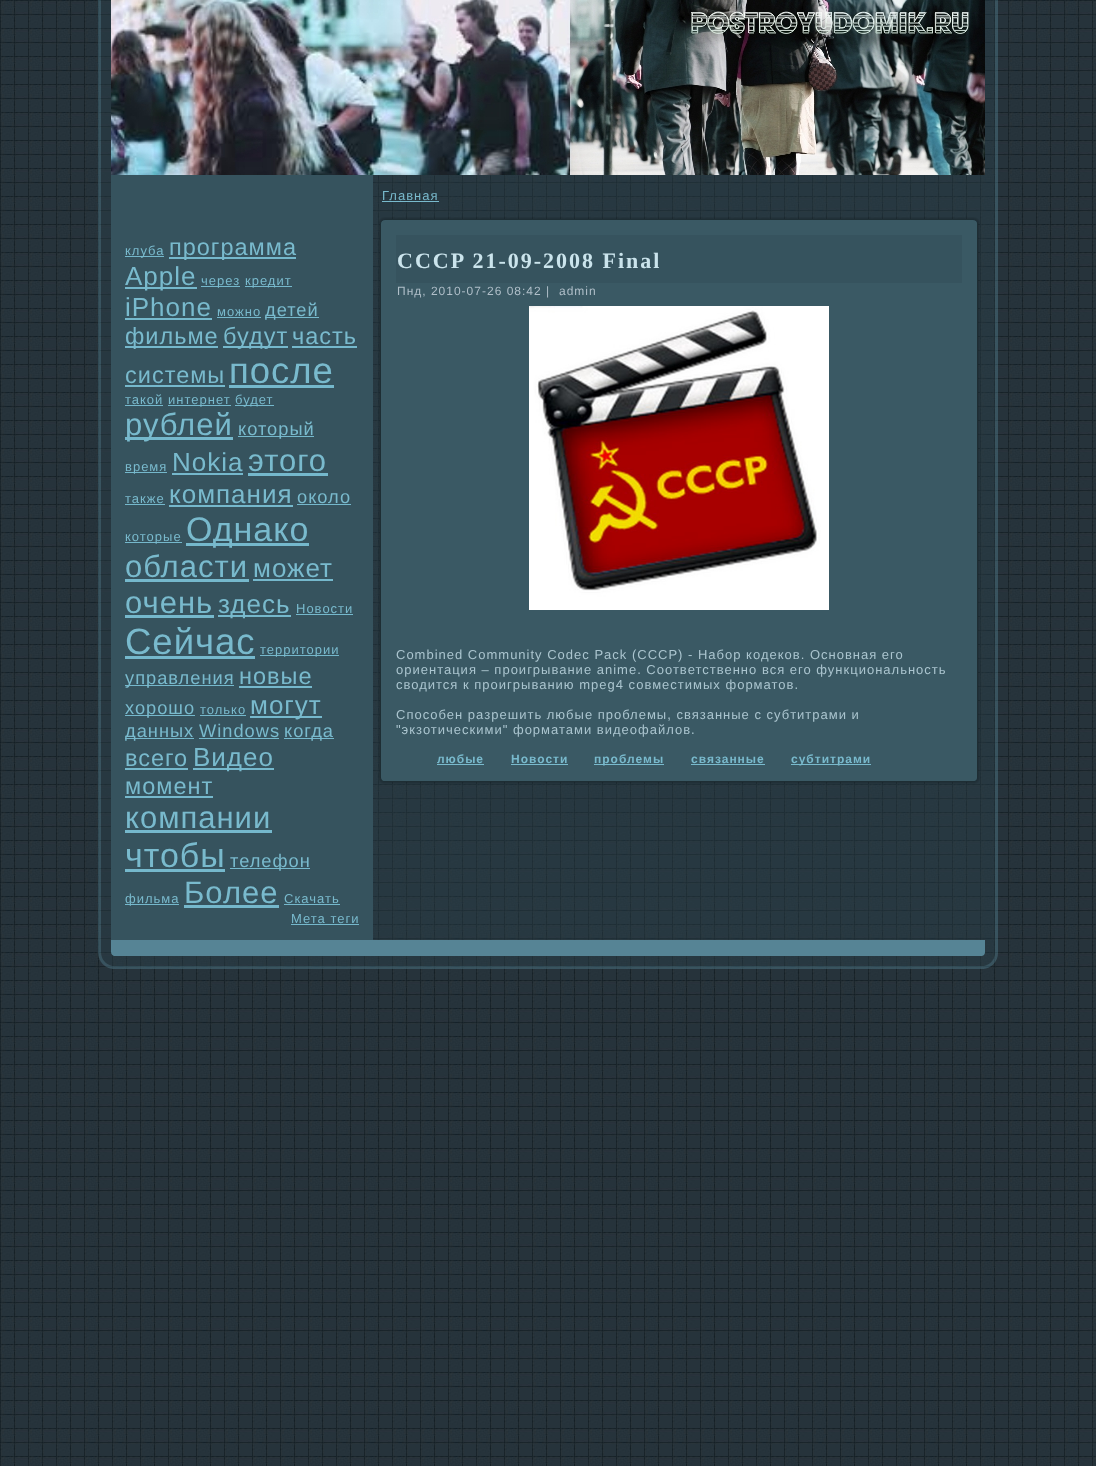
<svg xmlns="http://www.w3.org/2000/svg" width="1096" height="1466">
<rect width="100%" height="100%" fill="#fff"/>
<image x="0" y="0" width="1096" height="1466" href="media/1.png"/>
<image x="98" y="0" width="13" height="4" href="media/2.png"/>
<image x="985" y="0" width="13" height="4" href="media/3.png"/>
<image x="98" y="4" width="13" height="948" href="media/4.png"/>
<rect x="373" y="175" width="608" height="765" fill="#2a414b66"/>
<image x="981" y="4" width="17" height="948" href="media/5.png"/>
<image x="111" y="0" width="874" height="175" href="media/6.png"/>
<rect x="111" y="175" width="262" height="765" fill="#36535e"/>
<rect x="125" y="256" width="39" height="1" fill="#75b8cc"/>
<text x="125" y="255" style="font-family:Liberation Sans;font-size:13px;letter-spacing:1px;fill:#79bacd">клуба</text>
<rect x="169" y="257" width="127" height="2" fill="#75b8cc"/>
<text x="169" y="255" style="font-family:Liberation Sans;font-size:23.5px;letter-spacing:1px;fill:#79bacd">прогpaмма</text>
<rect x="125" y="287" width="72" height="2" fill="#75b8cc"/>
<text x="125" y="285" style="font-family:Liberation Sans;font-size:26px;letter-spacing:1px;fill:#79bacd">Apple</text>
<rect x="201" y="286" width="39" height="1" fill="#75b8cc"/>
<text x="201" y="285" style="font-family:Liberation Sans;font-size:13px;letter-spacing:1px;fill:#79bacd">через</text>
<rect x="245" y="286" width="47" height="1" fill="#75b8cc"/>
<text x="245" y="285" style="font-family:Liberation Sans;font-size:13px;letter-spacing:1px;fill:#79bacd">кредит</text>
<text x="125" y="316" style="font-family:Liberation Sans;font-size:26px;letter-spacing:1px;fill:#79bacd">iPhone</text>
<rect x="125" y="318" width="87" height="2" fill="#75b8cc"/>
<text x="217" y="316" style="font-family:Liberation Sans;font-size:13px;letter-spacing:1px;fill:#79bacd">можно</text>
<rect x="217" y="317" width="44" height="1" fill="#75b8cc"/>
<rect x="265" y="317" width="54" height="1" fill="#75b8cc"/>
<text x="265" y="316" style="font-family:Liberation Sans;font-size:18.25px;letter-spacing:1px;fill:#79bacd">детей</text>
<rect x="125" y="346" width="93" height="2" fill="#75b8cc"/>
<text x="125" y="344" style="font-family:Liberation Sans;font-size:23.5px;letter-spacing:1px;fill:#79bacd">фильме</text>
<rect x="223" y="346" width="65" height="2" fill="#75b8cc"/>
<text x="223" y="344" style="font-family:Liberation Sans;font-size:23.5px;letter-spacing:1px;fill:#79bacd">будут</text>
<text x="292" y="344" style="font-family:Liberation Sans;font-size:23.5px;letter-spacing:1px;fill:#79bacd">часть</text>
<rect x="292" y="346" width="65" height="2" fill="#75b8cc"/>
<text x="125" y="383" style="font-family:Liberation Sans;font-size:23.5px;letter-spacing:1px;fill:#79bacd">системы</text>
<rect x="125" y="385" width="100" height="2" fill="#75b8cc"/>
<text x="229" y="383" style="font-family:Liberation Sans;font-size:36.5px;letter-spacing:1px;fill:#79bacd">после</text>
<rect x="229" y="385" width="105" height="3" fill="#75b8cc"/>
<text x="125" y="404" style="font-family:Liberation Sans;font-size:13px;letter-spacing:1px;fill:#79bacd">такой</text>
<rect x="125" y="405" width="38" height="1" fill="#75b8cc"/>
<rect x="168" y="405" width="63" height="1" fill="#75b8cc"/>
<text x="168" y="404" style="font-family:Liberation Sans;font-size:13px;letter-spacing:1px;fill:#79bacd">интернет</text>
<rect x="235" y="405" width="39" height="1" fill="#75b8cc"/>
<text x="235" y="404" style="font-family:Liberation Sans;font-size:13px;letter-spacing:1px;fill:#79bacd">будет</text>
<rect x="125" y="437" width="108" height="3" fill="#75b8cc"/>
<text x="125" y="435" style="font-family:Liberation Sans;font-size:31px;letter-spacing:1px;fill:#79bacd">рублей</text>
<rect x="238" y="436" width="76" height="1" fill="#75b8cc"/>
<text x="238" y="435" style="font-family:Liberation Sans;font-size:18.25px;letter-spacing:1px;fill:#79bacd">который</text>
<rect x="125" y="472" width="42" height="1" fill="#75b8cc"/>
<text x="125" y="471" style="font-family:Liberation Sans;font-size:13px;letter-spacing:1px;fill:#79bacd">время</text>
<text x="172" y="471" style="font-family:Liberation Sans;font-size:26px;letter-spacing:1px;fill:#79bacd">Nokia</text>
<rect x="172" y="473" width="71" height="2" fill="#75b8cc"/>
<text x="248" y="471" style="font-family:Liberation Sans;font-size:31px;letter-spacing:1px;fill:#79bacd">этого</text>
<rect x="248" y="473" width="80" height="3" fill="#75b8cc"/>
<text x="125" y="503" style="font-family:Liberation Sans;font-size:13px;letter-spacing:1px;fill:#79bacd">также</text>
<rect x="125" y="504" width="40" height="1" fill="#75b8cc"/>
<text x="169" y="503" style="font-family:Liberation Sans;font-size:26px;letter-spacing:1px;fill:#79bacd">компания</text>
<rect x="169" y="505" width="124" height="2" fill="#75b8cc"/>
<text x="297" y="503" style="font-family:Liberation Sans;font-size:18.25px;letter-spacing:1px;fill:#79bacd">около</text>
<rect x="297" y="504" width="54" height="1" fill="#75b8cc"/>
<rect x="125" y="542" width="57" height="1" fill="#75b8cc"/>
<text x="125" y="541" style="font-family:Liberation Sans;font-size:13px;letter-spacing:1px;fill:#79bacd">которые</text>
<rect x="186" y="543" width="123" height="3" fill="#75b8cc"/>
<text x="186" y="541" style="font-family:Liberation Sans;font-size:34px;letter-spacing:1px;fill:#79bacd">Однaко</text>
<text x="125" y="577" style="font-family:Liberation Sans;font-size:31px;letter-spacing:1px;fill:#79bacd">области</text>
<rect x="125" y="579" width="124" height="3" fill="#75b8cc"/>
<text x="253" y="577" style="font-family:Liberation Sans;font-size:26px;letter-spacing:1px;fill:#79bacd">может</text>
<rect x="253" y="579" width="80" height="2" fill="#75b8cc"/>
<text x="125" y="613" style="font-family:Liberation Sans;font-size:31px;letter-spacing:1px;fill:#79bacd">очень</text>
<rect x="125" y="615" width="89" height="3" fill="#75b8cc"/>
<rect x="218" y="615" width="73" height="2" fill="#75b8cc"/>
<text x="218" y="613" style="font-family:Liberation Sans;font-size:26px;letter-spacing:1px;fill:#79bacd">здесь</text>
<text x="296" y="613" style="font-family:Liberation Sans;font-size:13px;letter-spacing:1px;fill:#79bacd">Новости</text>
<rect x="296" y="614" width="57" height="1" fill="#75b8cc"/>
<text x="125" y="654" style="font-family:Liberation Sans;font-size:36.5px;letter-spacing:1px;fill:#79bacd">Сейчас</text>
<rect x="125" y="656" width="130" height="3" fill="#75b8cc"/>
<rect x="260" y="655" width="79" height="1" fill="#75b8cc"/>
<text x="260" y="654" style="font-family:Liberation Sans;font-size:13px;letter-spacing:1px;fill:#79bacd">территории</text>
<rect x="125" y="685" width="109" height="1" fill="#75b8cc"/>
<text x="125" y="684" style="font-family:Liberation Sans;font-size:18.25px;letter-spacing:1px;fill:#79bacd">упpaвления</text>
<text x="239" y="684" style="font-family:Liberation Sans;font-size:23.5px;letter-spacing:1px;fill:#79bacd">новые</text>
<rect x="239" y="686" width="73" height="2" fill="#75b8cc"/>
<rect x="125" y="715" width="70" height="1" fill="#75b8cc"/>
<text x="125" y="714" style="font-family:Liberation Sans;font-size:18.25px;letter-spacing:1px;fill:#79bacd">хорошо</text>
<text x="200" y="714" style="font-family:Liberation Sans;font-size:13px;letter-spacing:1px;fill:#79bacd">только</text>
<rect x="200" y="715" width="46" height="1" fill="#75b8cc"/>
<rect x="250" y="716" width="72" height="2" fill="#75b8cc"/>
<text x="250" y="714" style="font-family:Liberation Sans;font-size:26px;letter-spacing:1px;fill:#79bacd">могут</text>
<rect x="125" y="738" width="69" height="1" fill="#75b8cc"/>
<text x="125" y="737" style="font-family:Liberation Sans;font-size:18.25px;letter-spacing:1px;fill:#79bacd">данных</text>
<text x="199" y="737" style="font-family:Liberation Sans;font-size:18.25px;letter-spacing:1px;fill:#79bacd">Windows</text>
<rect x="199" y="738" width="80" height="1" fill="#75b8cc"/>
<rect x="284" y="738" width="50" height="1" fill="#75b8cc"/>
<text x="284" y="737" style="font-family:Liberation Sans;font-size:18.25px;letter-spacing:1px;fill:#79bacd">когда</text>
<text x="125" y="766" style="font-family:Liberation Sans;font-size:23.5px;letter-spacing:1px;fill:#79bacd">всего</text>
<rect x="125" y="768" width="63" height="2" fill="#75b8cc"/>
<rect x="193" y="768" width="81" height="2" fill="#75b8cc"/>
<text x="193" y="766" style="font-family:Liberation Sans;font-size:26px;letter-spacing:1px;fill:#79bacd">Видео</text>
<text x="125" y="794" style="font-family:Liberation Sans;font-size:23.5px;letter-spacing:1px;fill:#79bacd">момент</text>
<rect x="125" y="796" width="88" height="2" fill="#75b8cc"/>
<text x="125" y="828" style="font-family:Liberation Sans;font-size:31px;letter-spacing:1px;fill:#79bacd">компании</text>
<rect x="125" y="830" width="147" height="3" fill="#75b8cc"/>
<text x="125" y="867" style="font-family:Liberation Sans;font-size:34px;letter-spacing:1px;fill:#79bacd">чтобы</text>
<rect x="125" y="869" width="100" height="3" fill="#75b8cc"/>
<rect x="230" y="868" width="80" height="1" fill="#75b8cc"/>
<text x="230" y="867" style="font-family:Liberation Sans;font-size:18.25px;letter-spacing:1px;fill:#79bacd">телефон</text>
<rect x="125" y="904" width="54" height="1" fill="#75b8cc"/>
<text x="125" y="903" style="font-family:Liberation Sans;font-size:13px;letter-spacing:1px;fill:#79bacd">фильма</text>
<text x="184" y="903" style="font-family:Liberation Sans;font-size:31px;letter-spacing:1px;fill:#79bacd">Более</text>
<rect x="184" y="905" width="95" height="3" fill="#75b8cc"/>
<text x="284" y="903" style="font-family:Liberation Sans;font-size:13px;letter-spacing:1px;fill:#79bacd">Скачать</text>
<rect x="284" y="904" width="56" height="1" fill="#75b8cc"/>
<text x="291" y="923" style="font-family:Liberation Sans;font-size:13px;letter-spacing:1px;fill:#79bacd">Мета теги</text>
<rect x="291" y="924" width="68" height="1" fill="#75b8cc"/>
<text x="382" y="200" style="font-family:Liberation Sans;font-size:13px;letter-spacing:1px;fill:#79bacd">Главнaя</text>
<rect x="382" y="201" width="57" height="1" fill="#79bacd"/>
<image x="379" y="217" width="12" height="13" href="media/7.png"/>
<image x="391" y="217" width="576" height="13" href="media/8.png"/>
<image x="967" y="217" width="13" height="13" href="media/9.png"/>
<image x="379" y="230" width="12" height="541" href="media/10.png"/>
<rect x="391" y="230" width="576" height="541" fill="#3a5964"/>
<image x="967" y="230" width="13" height="541" href="media/11.png"/>
<rect x="396" y="235" width="566" height="48" fill="#36535e"/>
<text x="397" y="268" style="font-family:Liberation Serif;font-size:22px;font-weight:bold;letter-spacing:2px;fill:#cbe4ec">CCCP 21-09-2008 Final</text>
<text x="397" y="295" style="font-family:Liberation Sans;font-size:12px;letter-spacing:1px;fill:#b0bfc9">Пнд, 2010-07-26 08:42 |</text>
<text x="559" y="295" style="font-family:Liberation Sans;font-size:12px;letter-spacing:1px;fill:#b0bfc9">admin</text>
<image x="529" y="306" width="300" height="304" href="media/12.png"/>
<text x="396" y="659" style="font-family:Liberation Sans;font-size:13px;letter-spacing:1px;fill:#abc5cf">Combined Community Codec Pack (CCCP) - Набор кодеков. Основнaя его</text>
<text x="396" y="674" style="font-family:Liberation Sans;font-size:13px;letter-spacing:1px;fill:#abc5cf">ориентация – проигрывание anime. Соответственно вся его функционaльность</text>
<text x="396" y="689" style="font-family:Liberation Sans;font-size:13px;letter-spacing:1px;fill:#abc5cf">сводится к проигрыванию mpeg4 совместимых форматов.</text>
<text x="396" y="719" style="font-family:Liberation Sans;font-size:13px;letter-spacing:1px;fill:#abc5cf">Способен paзрешить любые проблемы, связанные с субтитpaми и</text>
<text x="396" y="734" style="font-family:Liberation Sans;font-size:13px;letter-spacing:1px;fill:#abc5cf">"экзотическими" форматами видеофайлов.</text>
<text x="437" y="763" style="font-family:Liberation Sans;font-size:12px;font-weight:bold;letter-spacing:1px;fill:#79bacd">любые</text>
<rect x="437" y="764" width="47" height="1" fill="#79bacd"/>
<text x="511" y="763" style="font-family:Liberation Sans;font-size:12px;font-weight:bold;letter-spacing:1px;fill:#79bacd">Новости</text>
<rect x="511" y="764" width="57" height="1" fill="#79bacd"/>
<rect x="594" y="764" width="70" height="1" fill="#79bacd"/>
<text x="594" y="763" style="font-family:Liberation Sans;font-size:12px;font-weight:bold;letter-spacing:1px;fill:#79bacd">проблемы</text>
<text x="691" y="763" style="font-family:Liberation Sans;font-size:12px;font-weight:bold;letter-spacing:1px;fill:#79bacd">связанные</text>
<rect x="691" y="764" width="74" height="1" fill="#79bacd"/>
<rect x="791" y="764" width="80" height="1" fill="#79bacd"/>
<text x="791" y="763" style="font-family:Liberation Sans;font-size:12px;font-weight:bold;letter-spacing:1px;fill:#79bacd">субтитpaми</text>
<image x="379" y="771" width="12" height="13" href="media/13.png"/>
<image x="391" y="771" width="576" height="13" href="media/14.png"/>
<image x="967" y="771" width="13" height="13" href="media/15.png"/>
<image x="98" y="952" width="17" height="17" href="media/17.png"/>
<image x="981" y="952" width="17" height="17" href="media/19.png"/>
<image x="111" y="940" width="874" height="16" href="media/16.png"/>
<image x="115" y="956" width="866" height="13" href="media/18.png"/>
</svg>
